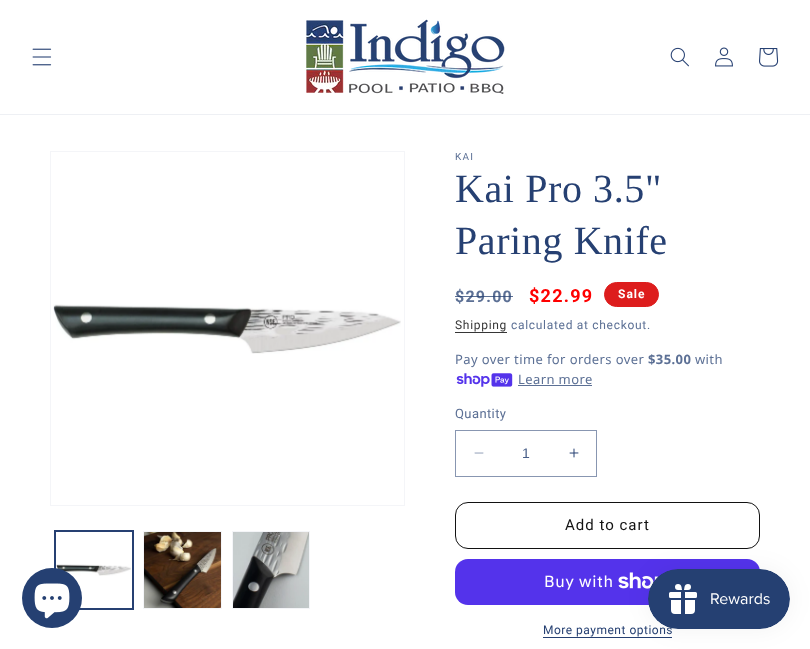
<svg xmlns="http://www.w3.org/2000/svg" width="810" height="649">
<rect width="100%" height="100%" fill="#fff"/>
<rect y="114" width="810" height="1" fill="#eef0f4"/>
<image x="32" y="48" width="20" height="18" href="media/1.png"/>
<image x="306" y="19" width="199" height="75" href="media/2.png"/>
<image x="670" y="47" width="19" height="20" href="media/3.png"/>
<image x="715" y="47" width="18" height="20" href="media/4.png"/>
<image x="759" y="48" width="20" height="19" href="media/5.png"/>
<rect x="50.5" y="151.5" width="354" height="354" fill="none" stroke="#f4f5f8"/>
<image x="53" y="304" width="348" height="50" href="media/6.png"/>
<rect x="54.5" y="530.5" width="79" height="79" fill="none" stroke="#264072"/>
<rect x="55.5" y="531.5" width="77" height="77" fill="none" stroke="#264072"/>
<image x="56" y="564" width="75" height="12" href="media/7.png"/>
<rect x="143.5" y="531.5" width="78" height="77" fill="none" stroke="#f4f5f8"/>
<image x="144" y="532" width="77" height="76" href="media/8.png"/>
<rect x="232.5" y="531.5" width="77" height="77" fill="none" stroke="#f4f5f8"/>
<image x="233" y="532" width="76" height="76" href="media/9.png"/>
<text x="455" y="160" style="font-family:Roboto;font-size:10px;letter-spacing:1.25px;fill:#5c7095">KAI</text>
<text x="455" y="202" style="font-family:Liberation Serif;font-size:40px;letter-spacing:0.6px;fill:#264072">Kai Pro 3.5"</text>
<text x="455" y="254" style="font-family:Liberation Serif;font-size:40px;letter-spacing:0.6px;fill:#264072">Paring Knife</text>
<text x="455" y="302" style="font-family:Roboto;font-size:16px;font-weight:bold;letter-spacing:1.25px;fill:#5c7095">$29.00</text>
<rect x="455" y="296" width="58" height="1" fill="#264072bf"/>
<text x="529" y="302" style="font-family:Roboto;font-size:18px;font-weight:bold;letter-spacing:1.25px;fill:#f00">$22.99</text>
<rect x="604.5" y="282.5" width="54" height="24" rx="12" fill="#dd1d1d" stroke="#dd1d1d"/>
<text x="618" y="298" style="font-family:Roboto;font-size:12px;font-weight:bold;letter-spacing:1px;fill:#fff">Sale</text>
<text x="455" y="329" style="font-family:Roboto;font-size:12px;letter-spacing:0.7px;fill:#363636">Shipping</text>
<rect x="455" y="332" width="52" height="1" fill="#363636"/>
<text x="511" y="329" style="font-family:Roboto;font-size:12px;letter-spacing:0.7px;fill:#5c7095">calculated at checkout.</text>
<text x="455" y="364" style="font-family:Noto Sans;font-size:13px;letter-spacing:0.4px;fill:#5c7095">Pay over time for orders over</text>
<text x="648" y="364" style="font-family:Noto Sans;font-size:13px;font-weight:bold;letter-spacing:0.4px;fill:#5c7095">$35.00</text>
<text x="695" y="364" style="font-family:Noto Sans;font-size:13px;letter-spacing:0.4px;fill:#5c7095">with</text>
<image x="456" y="373" width="57" height="14" href="media/10.png"/>
<text x="518" y="384" style="font-family:Noto Sans;font-size:13px;letter-spacing:0.4px;fill:#5c7095">Learn more</text>
<rect x="518" y="385" width="74" height="1" fill="#5c7095"/>
<text x="455" y="418" style="font-family:Roboto;font-size:13px;letter-spacing:0.4px;fill:#5c7095">Quantity</text>
<image x="474" y="452" width="10" height="2" href="media/11.png"/>
<image x="569" y="448" width="10" height="10" href="media/12.png"/>
<rect x="455.5" y="430.5" width="141" height="46" fill="none" stroke="#8896b1"/>
<text x="522" y="458" style="font-family:Liberation Sans;font-size:14px;fill:#475d87">1</text>
<rect x="455.5" y="502.5" width="304" height="46" rx="12.5" fill="none" stroke="#121212"/>
<text x="565" y="530" style="font-family:Roboto;font-size:15px;letter-spacing:1px;fill:#121212">Add to cart</text>
<rect x="455" y="559" width="305" height="46" rx="13" fill="#5433eb"/>
<text x="544" y="587" style="font-family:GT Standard;font-size:16px;letter-spacing:0.6px;fill:#fff">Buy with</text>
<image x="618" y="572" width="40" height="17" href="media/13.png"/>
<text x="543" y="634" style="font-family:Roboto;font-size:12px;letter-spacing:0.5px;fill:#264072">More payment options</text>
<rect x="543" y="637" width="129" height="1" fill="#264072"/>
<circle cx="52" cy="598" r="30" fill="#254072"/>
<image x="34" y="583" width="36" height="36" href="media/14.png"/>
<rect x="648" y="569" width="142" height="60" rx="30" fill="#0000000d" filter="blur(12.5px)"/>
<image x="648" y="569" width="142" height="60" href="media/15.png"/>
</svg>
